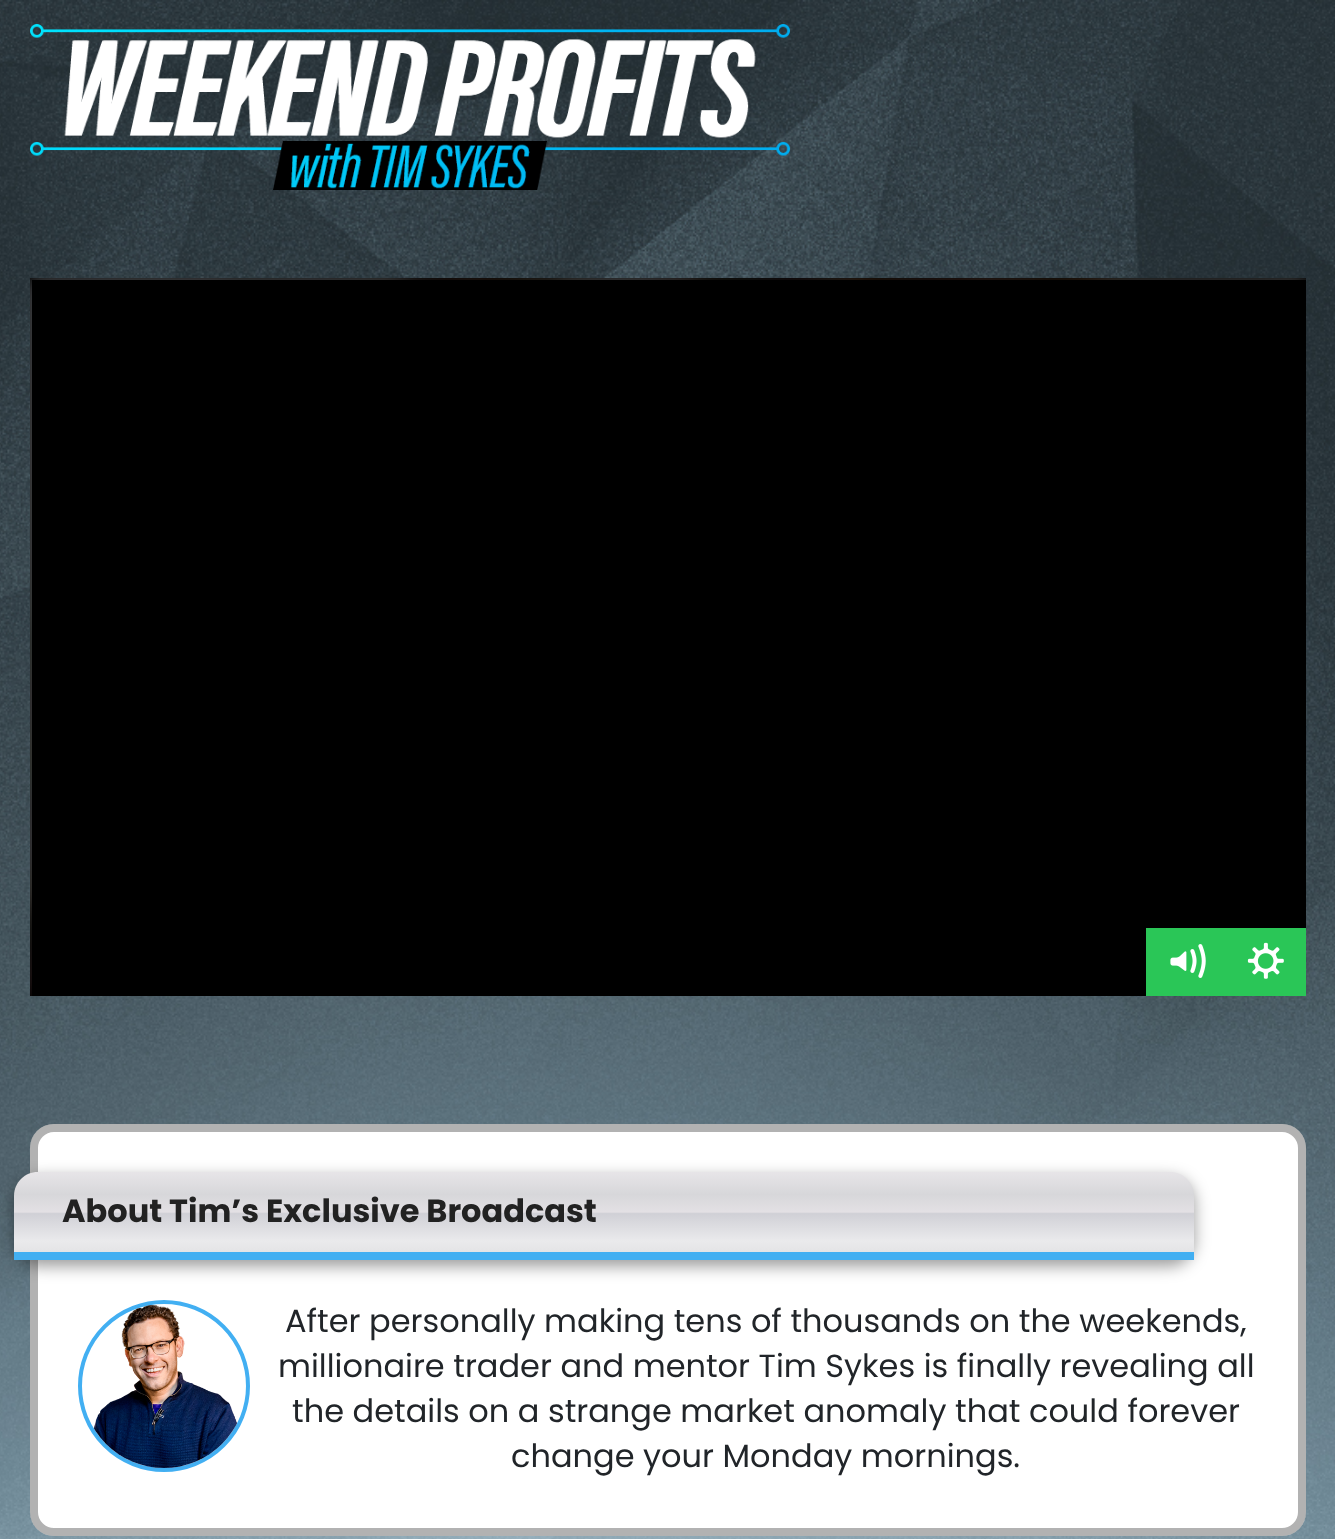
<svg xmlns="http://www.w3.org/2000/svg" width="1335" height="1539">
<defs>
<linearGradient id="g1" gradientUnits="userSpaceOnUse" x1="604" y1="1172" x2="604" y2="1252"><stop offset="0" stop-color="#e7e5e8"/><stop offset="0.28" stop-color="#d7d7da"/><stop offset="0.5" stop-color="#e3e0e4"/><stop offset="0.52" stop-color="#d0d0d6"/><stop offset="0.86" stop-color="#eaeaec"/><stop offset="1" stop-color="#e4e4e6"/></linearGradient>
</defs>
<rect width="100%" height="100%" fill="#fff"/>
<image x="0" y="0" width="1335" height="1539" href="media/1.png"/>
<image x="30" y="24" width="760" height="166" href="media/2.png"/>
<rect x="30" y="278" width="1276" height="718" fill="#000"/>
<image x="30" y="278" width="1276" height="718" href="media/3.png"/>
<rect x="32" y="280" width="1274" height="716" fill="#000"/>
<rect x="1146" y="928" width="160" height="68" fill="#2ac657"/>
<image x="1170" y="944" width="36" height="34" href="media/4.png"/>
<image x="1247" y="942" width="37" height="37" href="media/5.png"/>
<rect x="30" y="1124" width="1276" height="412" rx="24" fill="#fff"/>
<rect x="34" y="1128" width="1268" height="404" rx="20" fill="none" stroke="#0000004d" stroke-width="8"/>
<rect x="14" y="1178" width="1180" height="88" rx="24" fill="#00000066" filter="blur(8px)"/>
<path d="M38 1172h1132c13.5 0 24 10.5 24 24v56h-1180v-56c0-13.5 10.5-24 24-24z" fill="url(#g1)"/>
<rect x="14" y="1252" width="1180" height="8" fill="#42aff2"/>
<text x="62" y="1222" style="font-family:Poppins;font-size:32px;font-weight:bold;fill:#222">About Tim’s Exclusive Broadcast</text>
<circle cx="164" cy="1386" r="84" fill="none" stroke="#42aff2" stroke-width="4"/>
<image x="93" y="1305" width="144" height="163" href="media/6.png"/>
<text x="285" y="1332" style="font-family:Poppins;font-size:32px;fill:#212529">After personally making tens of thousands on the weekends,</text>
<text x="278" y="1377" style="font-family:Poppins;font-size:32px;fill:#212529">millionaire trader and mentor Tim Sykes is finally revealing all</text>
<text x="292" y="1422" style="font-family:Poppins;font-size:32px;fill:#212529">the details on a strange market anomaly that could forever</text>
<text x="511" y="1467" style="font-family:Poppins;font-size:32px;fill:#212529">change your Monday mornings.</text>
</svg>
